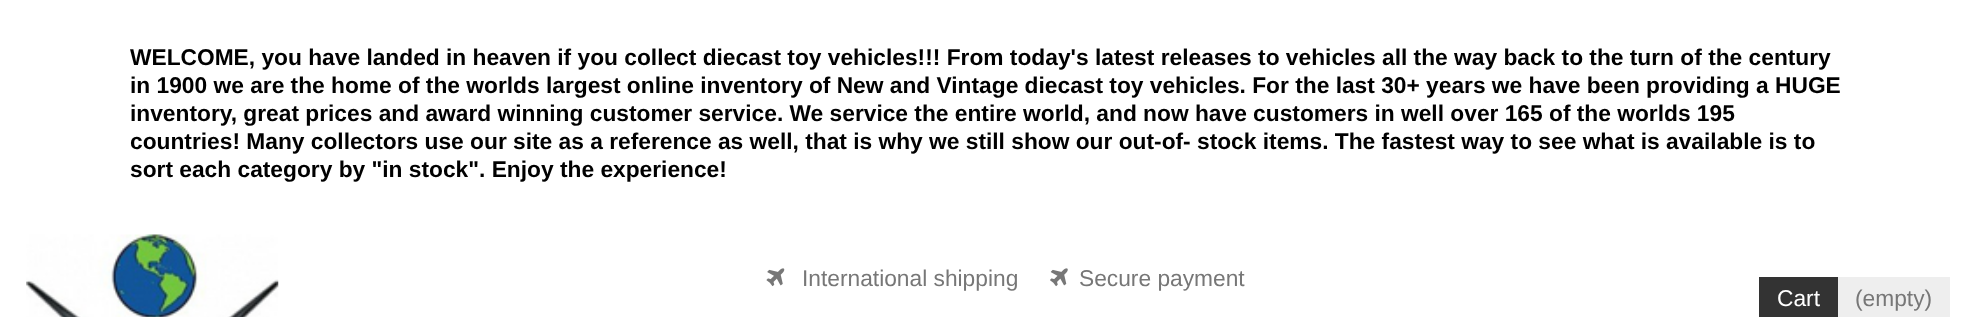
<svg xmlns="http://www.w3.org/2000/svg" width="1975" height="317">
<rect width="100%" height="100%" fill="#fff"/>
<text x="130" y="65" style="font-family:Liberation Sans;font-size:22.75px;font-weight:bold;fill:#000">WELCOME, you have landed in heaven if you collect diecast toy vehicles!!! From today's latest releases to vehicles all the way back to the turn of the century</text>
<text x="130" y="93" style="font-family:Liberation Sans;font-size:22.75px;font-weight:bold;fill:#000">in 1900 we are the home of the worlds largest online inventory of New and Vintage diecast toy vehicles. For the last 30+ years we have been providing a HUGE</text>
<text x="130" y="121" style="font-family:Liberation Sans;font-size:22.75px;font-weight:bold;fill:#000">inventory, great prices and award winning customer service. We service the entire world, and now have customers in well over 165 of the worlds 195</text>
<text x="130" y="149" style="font-family:Liberation Sans;font-size:22.75px;font-weight:bold;fill:#000">countries! Many collectors use our site as a reference as well, that is why we still show our out-of- stock items. The fastest way to see what is available is to</text>
<text x="130" y="177" style="font-family:Liberation Sans;font-size:22.75px;font-weight:bold;fill:#000">sort each category by "in stock". Enjoy the experience!</text>
<image x="26" y="234" width="253" height="83" href="media/1.png"/>
<image x="766" y="268" width="19" height="19" href="media/2.png"/>
<text x="802" y="286" style="font-family:Liberation Sans;font-size:22.75px;fill:#777">International shipping</text>
<image x="1050" y="268" width="18" height="19" href="media/3.png"/>
<text x="1079" y="286" style="font-family:Liberation Sans;font-size:22.75px;fill:#777">Secure payment</text>
<rect x="1759" y="277" width="79" height="40" fill="#333"/>
<text x="1777" y="306" style="font-family:Liberation Sans;font-size:22.75px;fill:#fff">Cart</text>
<rect x="1838" y="277" width="112" height="40" fill="#eee"/>
<text x="1855" y="306" style="font-family:Liberation Sans;font-size:22.75px;fill:#777">(empty)</text>
</svg>
